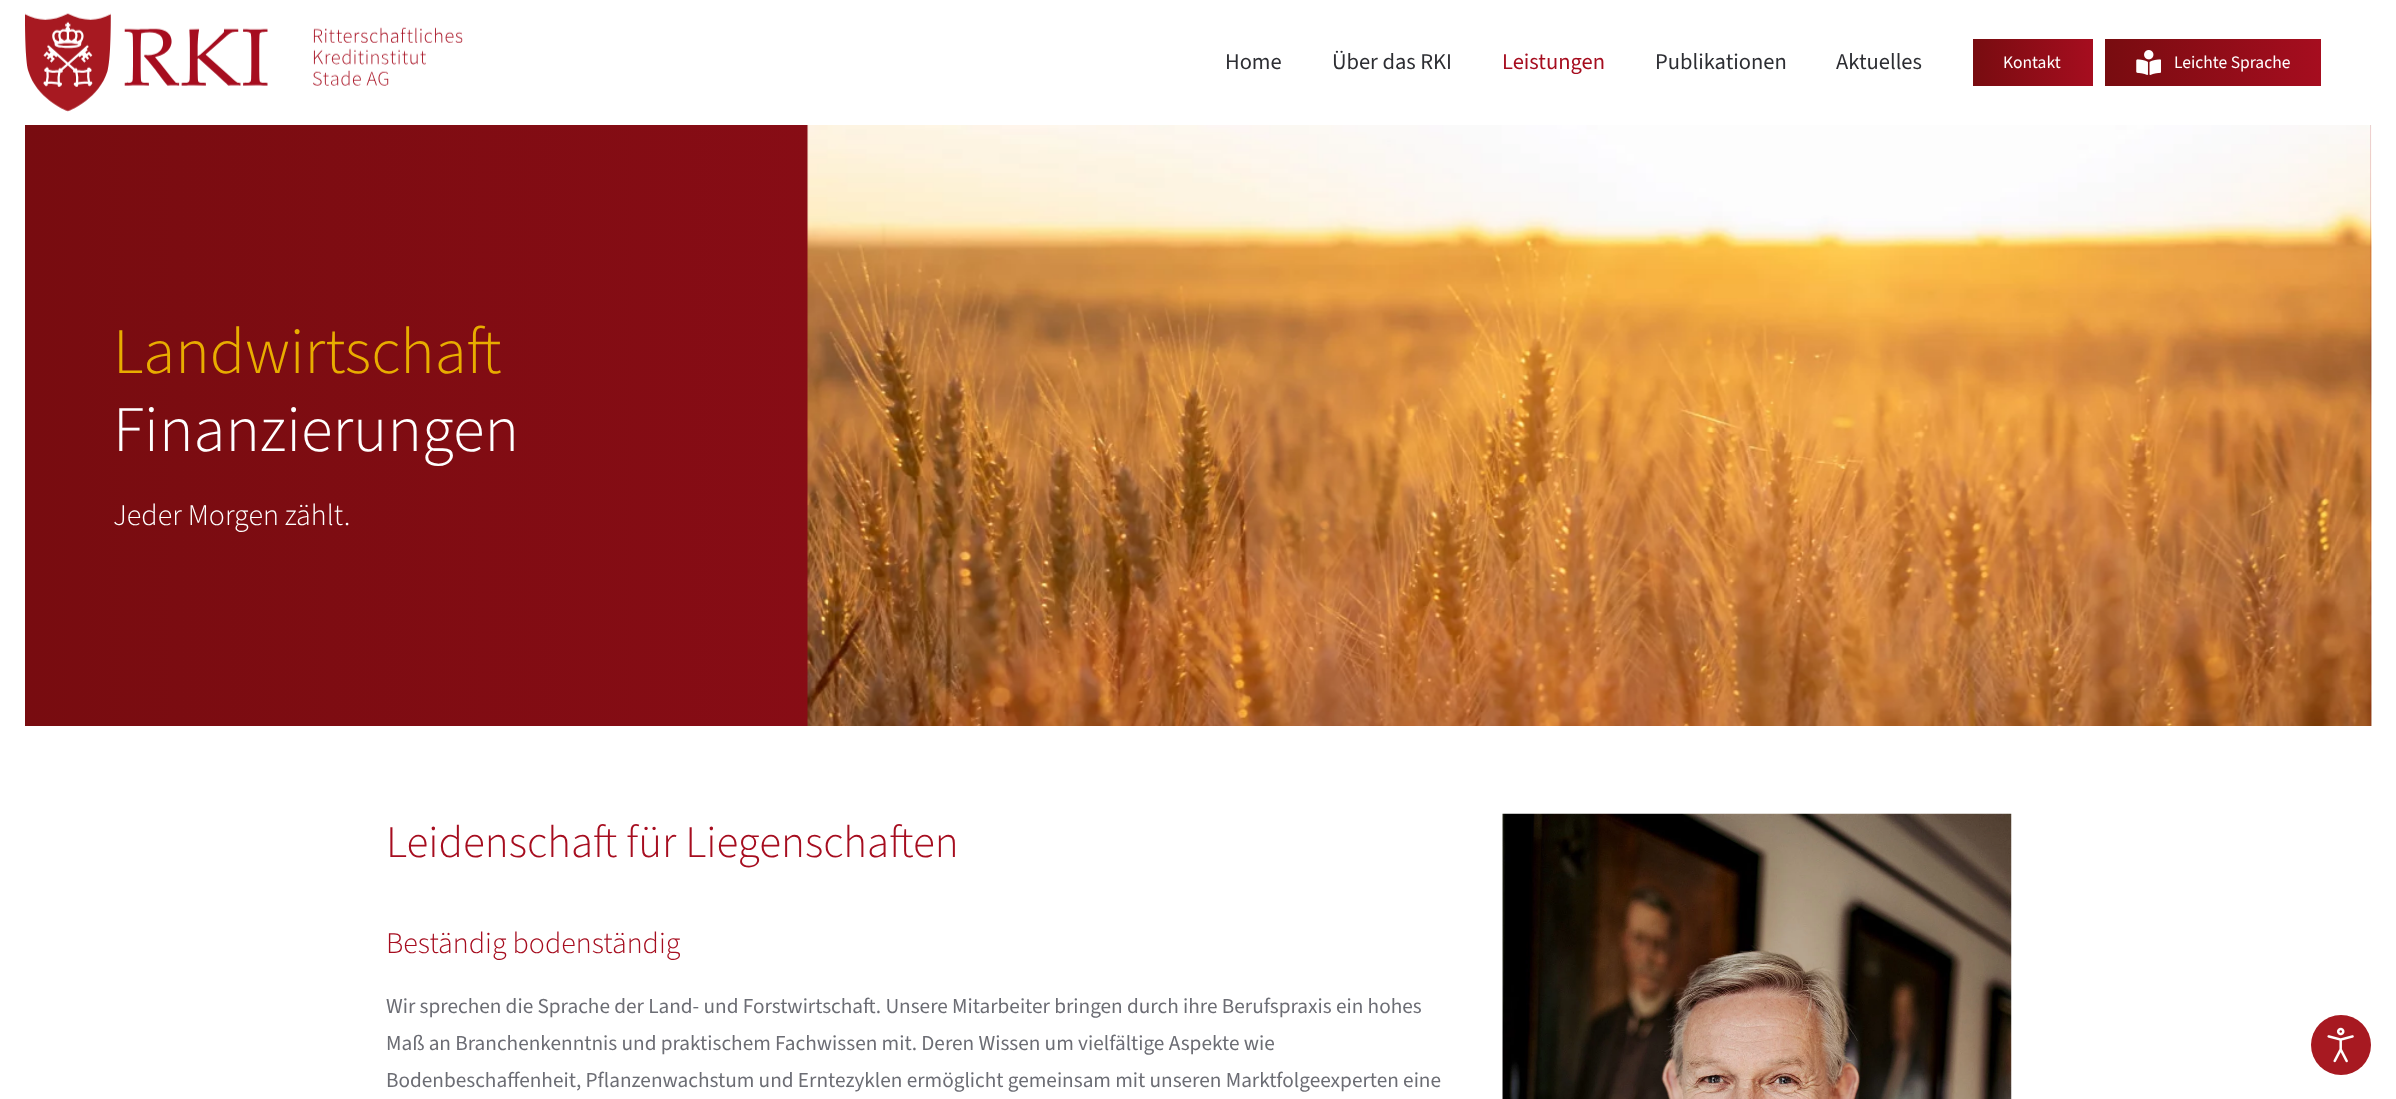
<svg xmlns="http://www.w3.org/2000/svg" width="2396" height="1099">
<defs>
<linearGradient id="g1" gradientUnits="userSpaceOnUse" x1="1973" y1="63" x2="2093" y2="63"><stop offset="0" stop-color="#780c10"/><stop offset="1" stop-color="#a60d1f"/></linearGradient>
<linearGradient id="g2" gradientUnits="userSpaceOnUse" x1="2105" y1="63" x2="2321" y2="62"><stop offset="0" stop-color="#780c10"/><stop offset="1" stop-color="#a60d1f"/></linearGradient>
<linearGradient id="g3" gradientUnits="userSpaceOnUse" x1="25" y1="426" x2="2371" y2="426"><stop offset="0" stop-color="#780c10"/><stop offset="1" stop-color="#a60d1f"/></linearGradient>
</defs>
<rect width="100%" height="100%" fill="#fff"/>
<image x="25" y="13" width="438" height="99" href="media/1.png"/>
<text x="1225" y="69" style="font-family:'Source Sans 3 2';font-size:22.5px;font-weight:200;fill:#2d2e33">Home</text>
<text x="1332" y="69" style="font-family:'Source Sans 3 2';font-size:22.5px;font-weight:200;fill:#2d2e33">Über das RKI</text>
<text x="1502" y="69" style="font-family:'Source Sans 3 2';font-size:22.5px;font-weight:200;fill:#a60d1f">Leistungen</text>
<text x="1655" y="69" style="font-family:'Source Sans 3 2';font-size:22.5px;font-weight:200;fill:#2d2e33">Publikationen</text>
<text x="1836" y="69" style="font-family:'Source Sans 3 2';font-size:22.5px;font-weight:200;fill:#2d2e33">Aktuelles</text>
<rect x="1973" y="39" width="120" height="47" fill="url(#g1)"/>
<text x="2003" y="68" style="font-family:'Source Sans 3 2';font-size:17.5px;font-weight:200;fill:#fff">Kontakt</text>
<rect x="2105" y="39" width="216" height="47" fill="url(#g2)"/>
<image x="2136" y="50" width="25" height="25" href="media/2.png"/>
<text x="2174" y="68" style="font-family:'Source Sans 3 2';font-size:17.5px;font-weight:200;fill:#fff">Leichte Sprache</text>
<rect x="25" y="125" width="2346" height="601" fill="url(#g3)"/>
<text x="113" y="373" style="font-family:'Source Sans 3';font-size:65px;font-weight:200;fill:#e8ad00">Landwirtschaft</text>
<text x="113" y="451" style="font-family:'Source Sans 3';font-size:65px;font-weight:200;fill:#fff">Finanzierungen</text>
<text x="113" y="525" style="font-family:'Source Sans 3';font-size:30px;font-weight:200;fill:#fff">Jeder Morgen zählt.</text>
<image x="807" y="125" width="1565" height="601" href="media/3.png"/>
<text x="386" y="857" style="font-family:'Source Sans 3';font-size:45px;font-weight:200;fill:#a60d1f">Leidenschaft für Liegenschaften</text>
<text x="386" y="953" style="font-family:'Source Sans 3';font-size:30px;font-weight:200;fill:#a60d1f">Beständig bodenständig</text>
<text x="386" y="1013" style="font-family:'Source Sans 3 2';font-size:21.25px;font-weight:200;fill:#6c6d74">Wir sprechen die Sprache der Land- und Forstwirtschaft. Unsere Mitarbeiter bringen durch ihre Berufspraxis ein hohes</text>
<text x="386" y="1050" style="font-family:'Source Sans 3 2';font-size:21.25px;font-weight:200;fill:#6c6d74">Maß an Branchenkenntnis und praktischem Fachwissen mit. Deren Wissen um vielfältige Aspekte wie</text>
<text x="386" y="1087" style="font-family:'Source Sans 3 2';font-size:21.25px;font-weight:200;fill:#6c6d74">Bodenbeschaffenheit, Pflanzenwachstum und Erntezyklen ermöglicht gemeinsam mit unseren Marktfolgeexperten eine</text>
<image x="1502" y="813" width="510" height="286" href="media/4.png"/>
<circle cx="2341" cy="1045" r="30" fill="#a71921"/>
<image x="2327" y="1027" width="27" height="36" href="media/5.png"/>
</svg>
